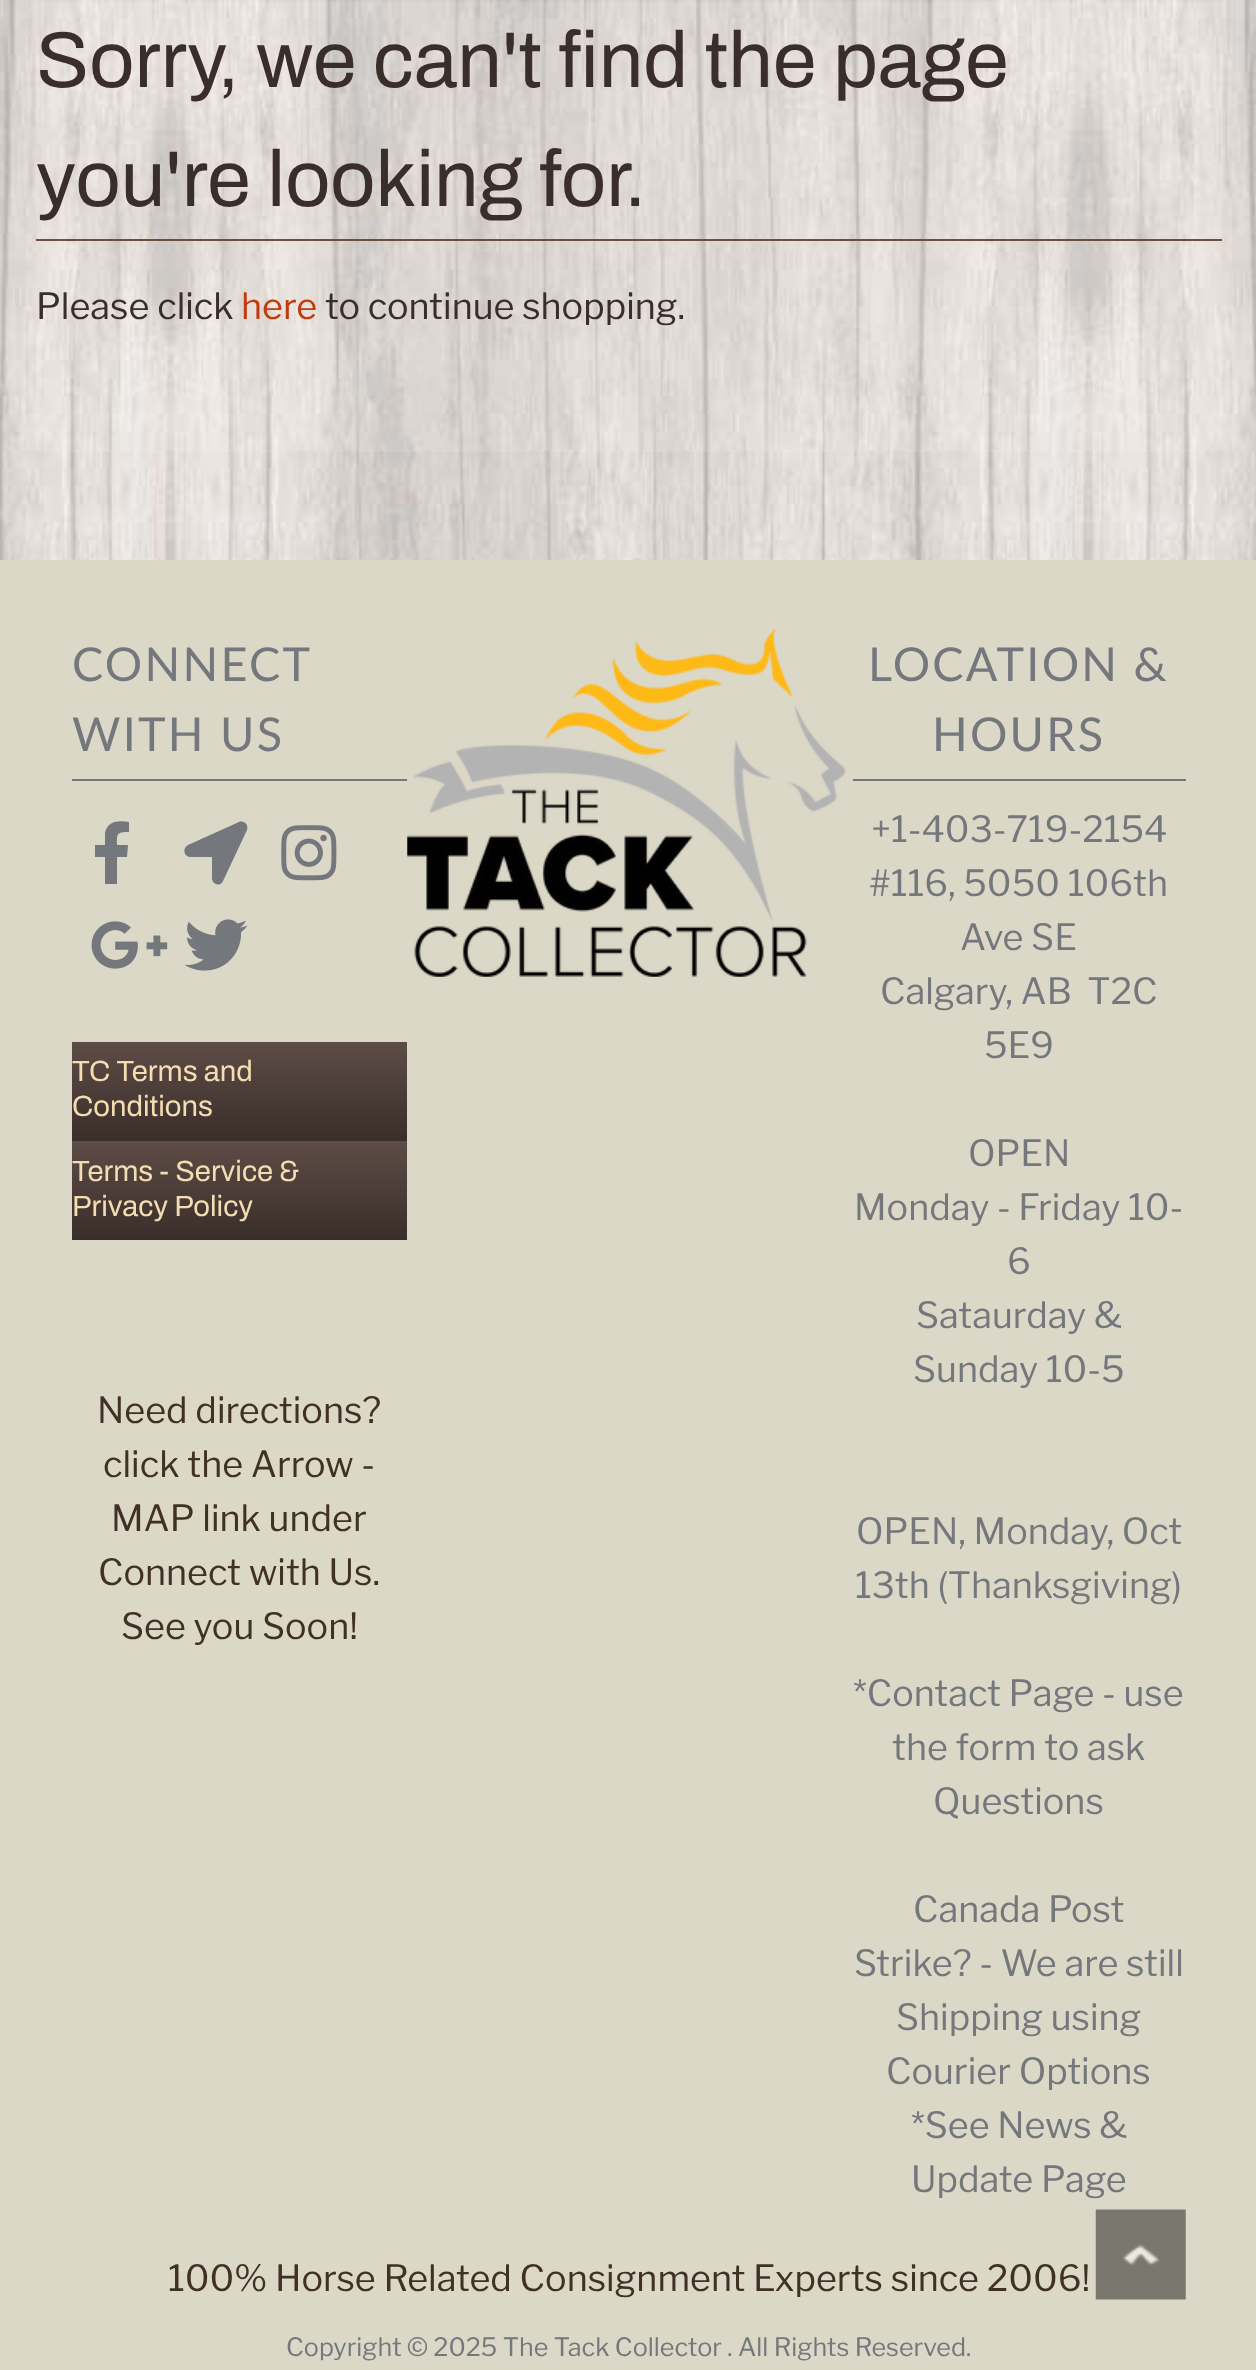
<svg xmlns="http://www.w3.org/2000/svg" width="1256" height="2370">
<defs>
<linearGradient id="g1" gradientUnits="userSpaceOnUse" x1="240" y1="1042" x2="240" y2="1141"><stop offset="0" stop-color="#5e4c46"/><stop offset="1" stop-color="#392e2a"/></linearGradient>
<linearGradient id="g2" gradientUnits="userSpaceOnUse" x1="240" y1="1141" x2="240" y2="1240"><stop offset="0" stop-color="#5e4c46"/><stop offset="1" stop-color="#392e2a"/></linearGradient>
</defs>
<rect width="100%" height="100%" fill="#fff"/>
<image x="0" y="0" width="1256" height="560" href="media/1.png"/>
<rect x="36" y="2" width="1186" height="450" fill="#ffffff1a"/>
<rect x="36" y="239" width="1186" height="2" fill="#6b4f45"/>
<text x="36" y="87" style="font-family:Archivo;font-size:79.25px;fill:#392e2a">Sorry, we can't find the page</text>
<text x="36" y="206" style="font-family:Archivo;font-size:79.25px;fill:#392e2a">you're looking for.</text>
<text x="36" y="319" style="font-family:Libre Franklin;font-size:36px;fill:#392e2a">Please click</text>
<text x="241" y="319" style="font-family:Libre Franklin;font-size:36px;fill:#c33a0e">here</text>
<text x="325" y="319" style="font-family:Libre Franklin;font-size:36px;fill:#392e2a">to continue shopping.</text>
<rect y="560" width="1256" height="1810" fill="#dcd8c8"/>
<rect x="72" y="779" width="335" height="2" fill="#74777b"/>
<text x="72" y="681" style="font-family:Lato;font-size:46.75px;letter-spacing:2.25px;fill:#74777b">CONNECT</text>
<text x="72" y="751" style="font-family:Lato;font-size:46.75px;letter-spacing:2.25px;fill:#74777b">WITH US</text>
<path d="M127 857l1-12h-11c0-11-1-13 12-13v-10c-10-2-22-1-24 11v12h-10v12h10v27h12v-27z" fill="#74777b"/>
<path d="M239 822l-51 23c-6 3-4 12 2 12h22v21c0 7 9 9 11 3l24-51c2-5-3-10-8-8z" fill="#74777b"/>
<image x="281" y="825" width="56" height="56" href="media/2.png"/>
<image x="91" y="921" width="77" height="48" href="media/3.png"/>
<image x="184" y="919" width="64" height="52" href="media/4.png"/>
<rect x="72" y="1042" width="335" height="99" fill="url(#g1)"/>
<text x="72" y="1081" style="font-family:Archivo;font-size:29.25px;fill:#f4ddb1">TC Terms and</text>
<text x="72" y="1116" style="font-family:Archivo;font-size:29.25px;fill:#f4ddb1">Conditions</text>
<rect x="72" y="1141" width="335" height="99" fill="url(#g2)"/>
<text x="72" y="1181" style="font-family:Archivo;font-size:29.25px;fill:#f4ddb1">Terms - Service &amp;</text>
<text x="72" y="1216" style="font-family:Archivo;font-size:29.25px;fill:#f4ddb1">Privacy Policy</text>
<text x="97" y="1423" style="font-family:Libre Franklin;font-size:36px;fill:#403125">Need directions?</text>
<text x="103" y="1477" style="font-family:Libre Franklin;font-size:36px;fill:#403125">click the Arrow -</text>
<text x="111" y="1531" style="font-family:Libre Franklin;font-size:36px;fill:#403125">MAP link under</text>
<text x="98" y="1585" style="font-family:Libre Franklin;font-size:36px;fill:#403125">Connect with Us.</text>
<text x="121" y="1639" style="font-family:Libre Franklin;font-size:36px;fill:#403125">See you Soon!</text>
<image x="407" y="628" width="439" height="349" href="media/5.png"/>
<rect x="853" y="779" width="333" height="2" fill="#74777b"/>
<text x="868" y="681" style="font-family:Lato;font-size:46.75px;letter-spacing:2.25px;fill:#74777b">LOCATION &amp;</text>
<text x="932" y="751" style="font-family:Lato;font-size:46.75px;letter-spacing:2.25px;fill:#74777b">HOURS</text>
<text x="871" y="842" style="font-family:Libre Franklin;font-size:36px;fill:#74777b">+1-403-719-2154</text>
<text x="869" y="896" style="font-family:Libre Franklin;font-size:36px;fill:#74777b">#116, 5050 106th</text>
<text x="960" y="950" style="font-family:Libre Franklin;font-size:36px;fill:#74777b">Ave SE</text>
<text x="880" y="1004" style="font-family:Libre Franklin;font-size:36px;fill:#74777b" xml:space="preserve">Calgary, AB  T2C</text>
<text x="984" y="1058" style="font-family:Libre Franklin;font-size:36px;fill:#74777b">5E9</text>
<text x="968" y="1166" style="font-family:Libre Franklin;font-size:36px;fill:#74777b">OPEN</text>
<text x="854" y="1220" style="font-family:Libre Franklin;font-size:36px;fill:#74777b">Monday - Friday 10-</text>
<text x="1007" y="1274" style="font-family:Libre Franklin;font-size:36px;fill:#74777b">6</text>
<text x="916" y="1328" style="font-family:Libre Franklin;font-size:36px;fill:#74777b">Sataurday &amp;</text>
<text x="913" y="1382" style="font-family:Libre Franklin;font-size:36px;fill:#74777b">Sunday 10-5</text>
<text x="856" y="1544" style="font-family:Libre Franklin;font-size:36px;fill:#74777b">OPEN, Monday, Oct</text>
<text x="855" y="1598" style="font-family:Libre Franklin;font-size:36px;fill:#74777b">13th (Thanksgiving)</text>
<text x="853" y="1706" style="font-family:Libre Franklin;font-size:36px;fill:#74777b">*Contact Page - use</text>
<text x="892" y="1760" style="font-family:Libre Franklin;font-size:36px;fill:#74777b">the form to ask</text>
<text x="933" y="1814" style="font-family:Libre Franklin;font-size:36px;fill:#74777b">Questions</text>
<text x="913" y="1922" style="font-family:Libre Franklin;font-size:36px;fill:#74777b">Canada Post</text>
<text x="854" y="1976" style="font-family:Libre Franklin;font-size:36px;fill:#74777b">Strike? - We are still</text>
<text x="896" y="2030" style="font-family:Libre Franklin;font-size:36px;fill:#74777b">Shipping using</text>
<text x="886" y="2084" style="font-family:Libre Franklin;font-size:36px;fill:#74777b">Courier Options</text>
<text x="911" y="2138" style="font-family:Libre Franklin;font-size:36px;fill:#74777b">*See News &amp;</text>
<text x="911" y="2192" style="font-family:Libre Franklin;font-size:36px;fill:#74777b">Update Page</text>
<text x="168" y="2291" style="font-family:Libre Franklin;font-size:36px;fill:#403125">100% Horse Related Consignment Experts since 2006!</text>
<image x="1095" y="2209" width="91" height="91" href="media/6.png"/>
<text x="286" y="2356" style="font-family:Libre Franklin;font-size:25.2px;fill:#74777b">Copyright © 2025 The Tack Collector . All Rights Reserved.</text>
</svg>
